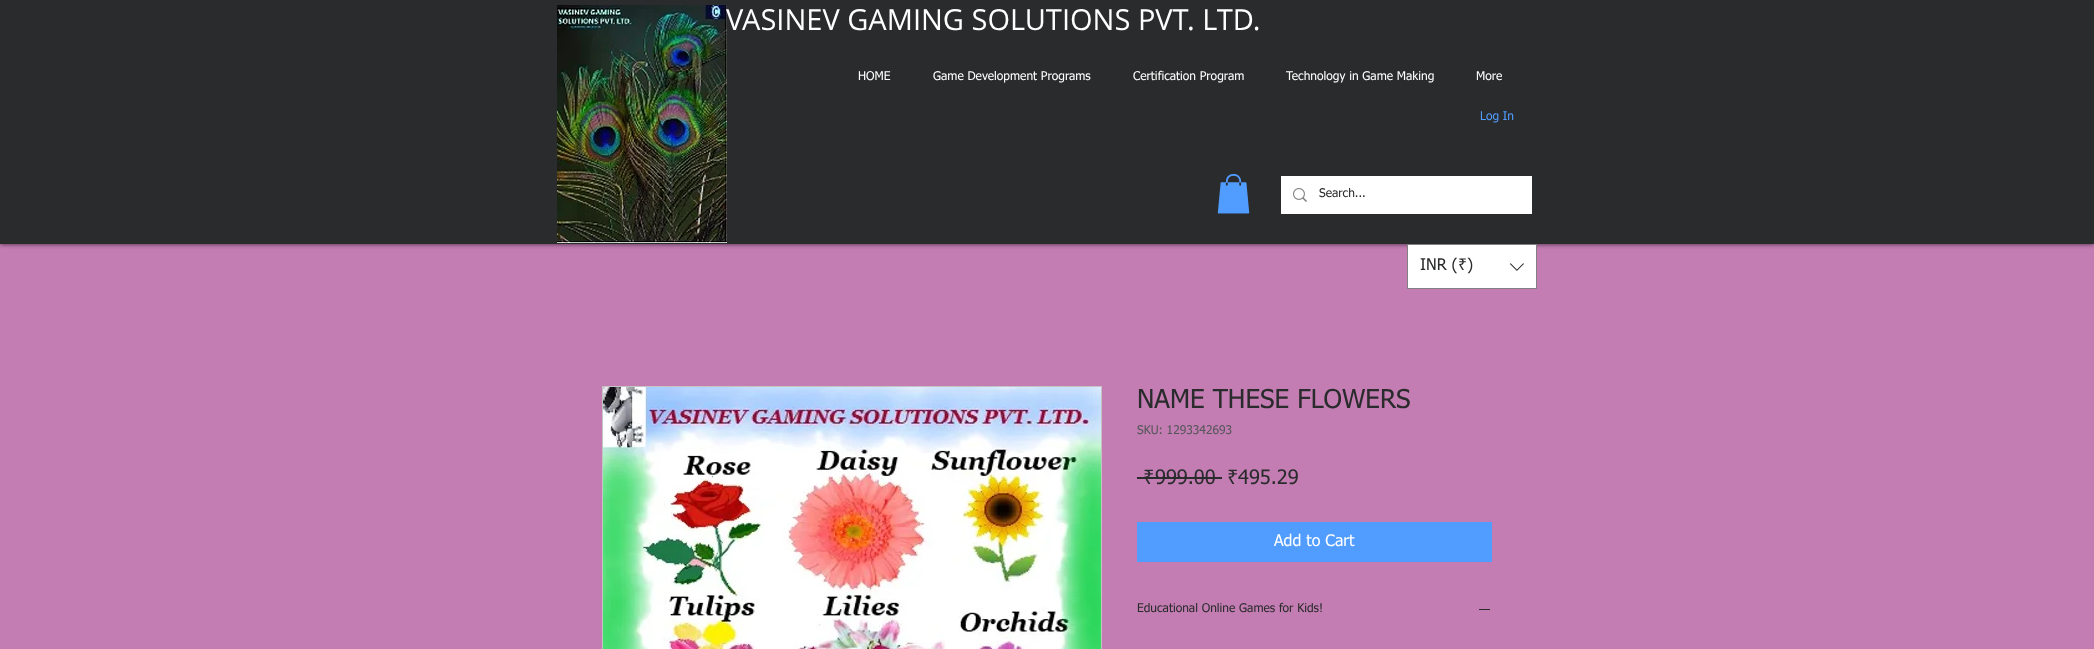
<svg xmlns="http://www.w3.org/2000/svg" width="2094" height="649">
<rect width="100%" height="100%" fill="#c37db3"/>
<rect width="2094" height="244" fill="#000000b3" filter="blur(2.5px)"/>
<rect width="2094" height="244" fill="#2a2b2c"/>
<image x="557" y="5" width="170" height="238" href="media/1.png"/>
<text x="726" y="30" style="font-family:Open Sans;font-size:29px;fill:#fff">VASINEV GAMING SOLUTIONS PVT. LTD.</text>
<text x="858" y="80" style="font-family:tahoma;font-size:12px;fill:#fff">HOME</text>
<text x="933" y="80" style="font-family:tahoma;font-size:12px;fill:#fff">Game Development Programs</text>
<text x="1133" y="80" style="font-family:tahoma;font-size:12px;fill:#fff">Certification Program</text>
<text x="1286" y="80" style="font-family:tahoma;font-size:12px;fill:#fff">Technology in Game Making</text>
<text x="1476" y="80" style="font-family:tahoma;font-size:12px;fill:#fff">More</text>
<text x="1480" y="120" style="font-family:tahoma;font-size:12px;fill:#519cff">Log In</text>
<image x="1217" y="174" width="33" height="40" href="media/2.png"/>
<rect x="1281" y="176" width="251" height="38" fill="#fff"/>
<image x="1293" y="188" width="14" height="14" href="media/3.png"/>
<text x="1319" y="197" style="font-family:tahoma;font-size:12px;fill:#2a2b2c">Search...</text>
<rect x="1407.5" y="244.5" width="129" height="44" fill="#fff" stroke="#7f8080"/>
<text x="1420" y="270" style="font-family:tahoma;font-size:16px;fill:#2a2b2c">INR (</text>
<text x="1458" y="270" style="font-family:Noto Sans;font-size:16px;fill:#2a2b2c">₹</text>
<text x="1467" y="270" style="font-family:tahoma;font-size:16px;fill:#2a2b2c">)</text>
<image x="1509" y="263" width="15" height="8" href="media/4.png"/>
<rect x="602.5" y="386.5" width="499" height="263" fill="none" stroke="#c5c3c3"/>
<image x="603" y="387" width="498" height="262" href="media/5.png"/>
<text x="1137" y="408" style="font-family:tahoma;font-size:26px;fill:#2a2b2c">NAME THESE FLOWERS</text>
<text x="1137" y="434" style="font-family:tahoma;font-size:12px;fill:#545658">SKU: 1293342693</text>
<text x="1143" y="484" style="font-family:Noto Sans;font-size:20px;fill:#2a2b2c">₹</text>
<text x="1155" y="484" style="font-family:tahoma;font-size:20px;fill:#2a2b2c">999.00</text>
<rect x="1137" y="477" width="85" height="2" fill="#2a2b2c"/>
<text x="1227" y="484" style="font-family:Noto Sans;font-size:20px;fill:#2a2b2c">₹</text>
<text x="1238" y="484" style="font-family:tahoma;font-size:20px;fill:#2a2b2c">495.29</text>
<rect x="1137" y="522" width="355" height="40" fill="#519cff"/>
<text x="1274" y="546" style="font-family:tahoma;font-size:16px;fill:#fff">Add to Cart</text>
<text x="1137" y="612" style="font-family:tahoma;font-size:12px;fill:#2a2b2c">Educational Online Games for Kids!</text>
<rect x="1479" y="609" width="11" height="1" fill="#2a2b2c"/>
</svg>
